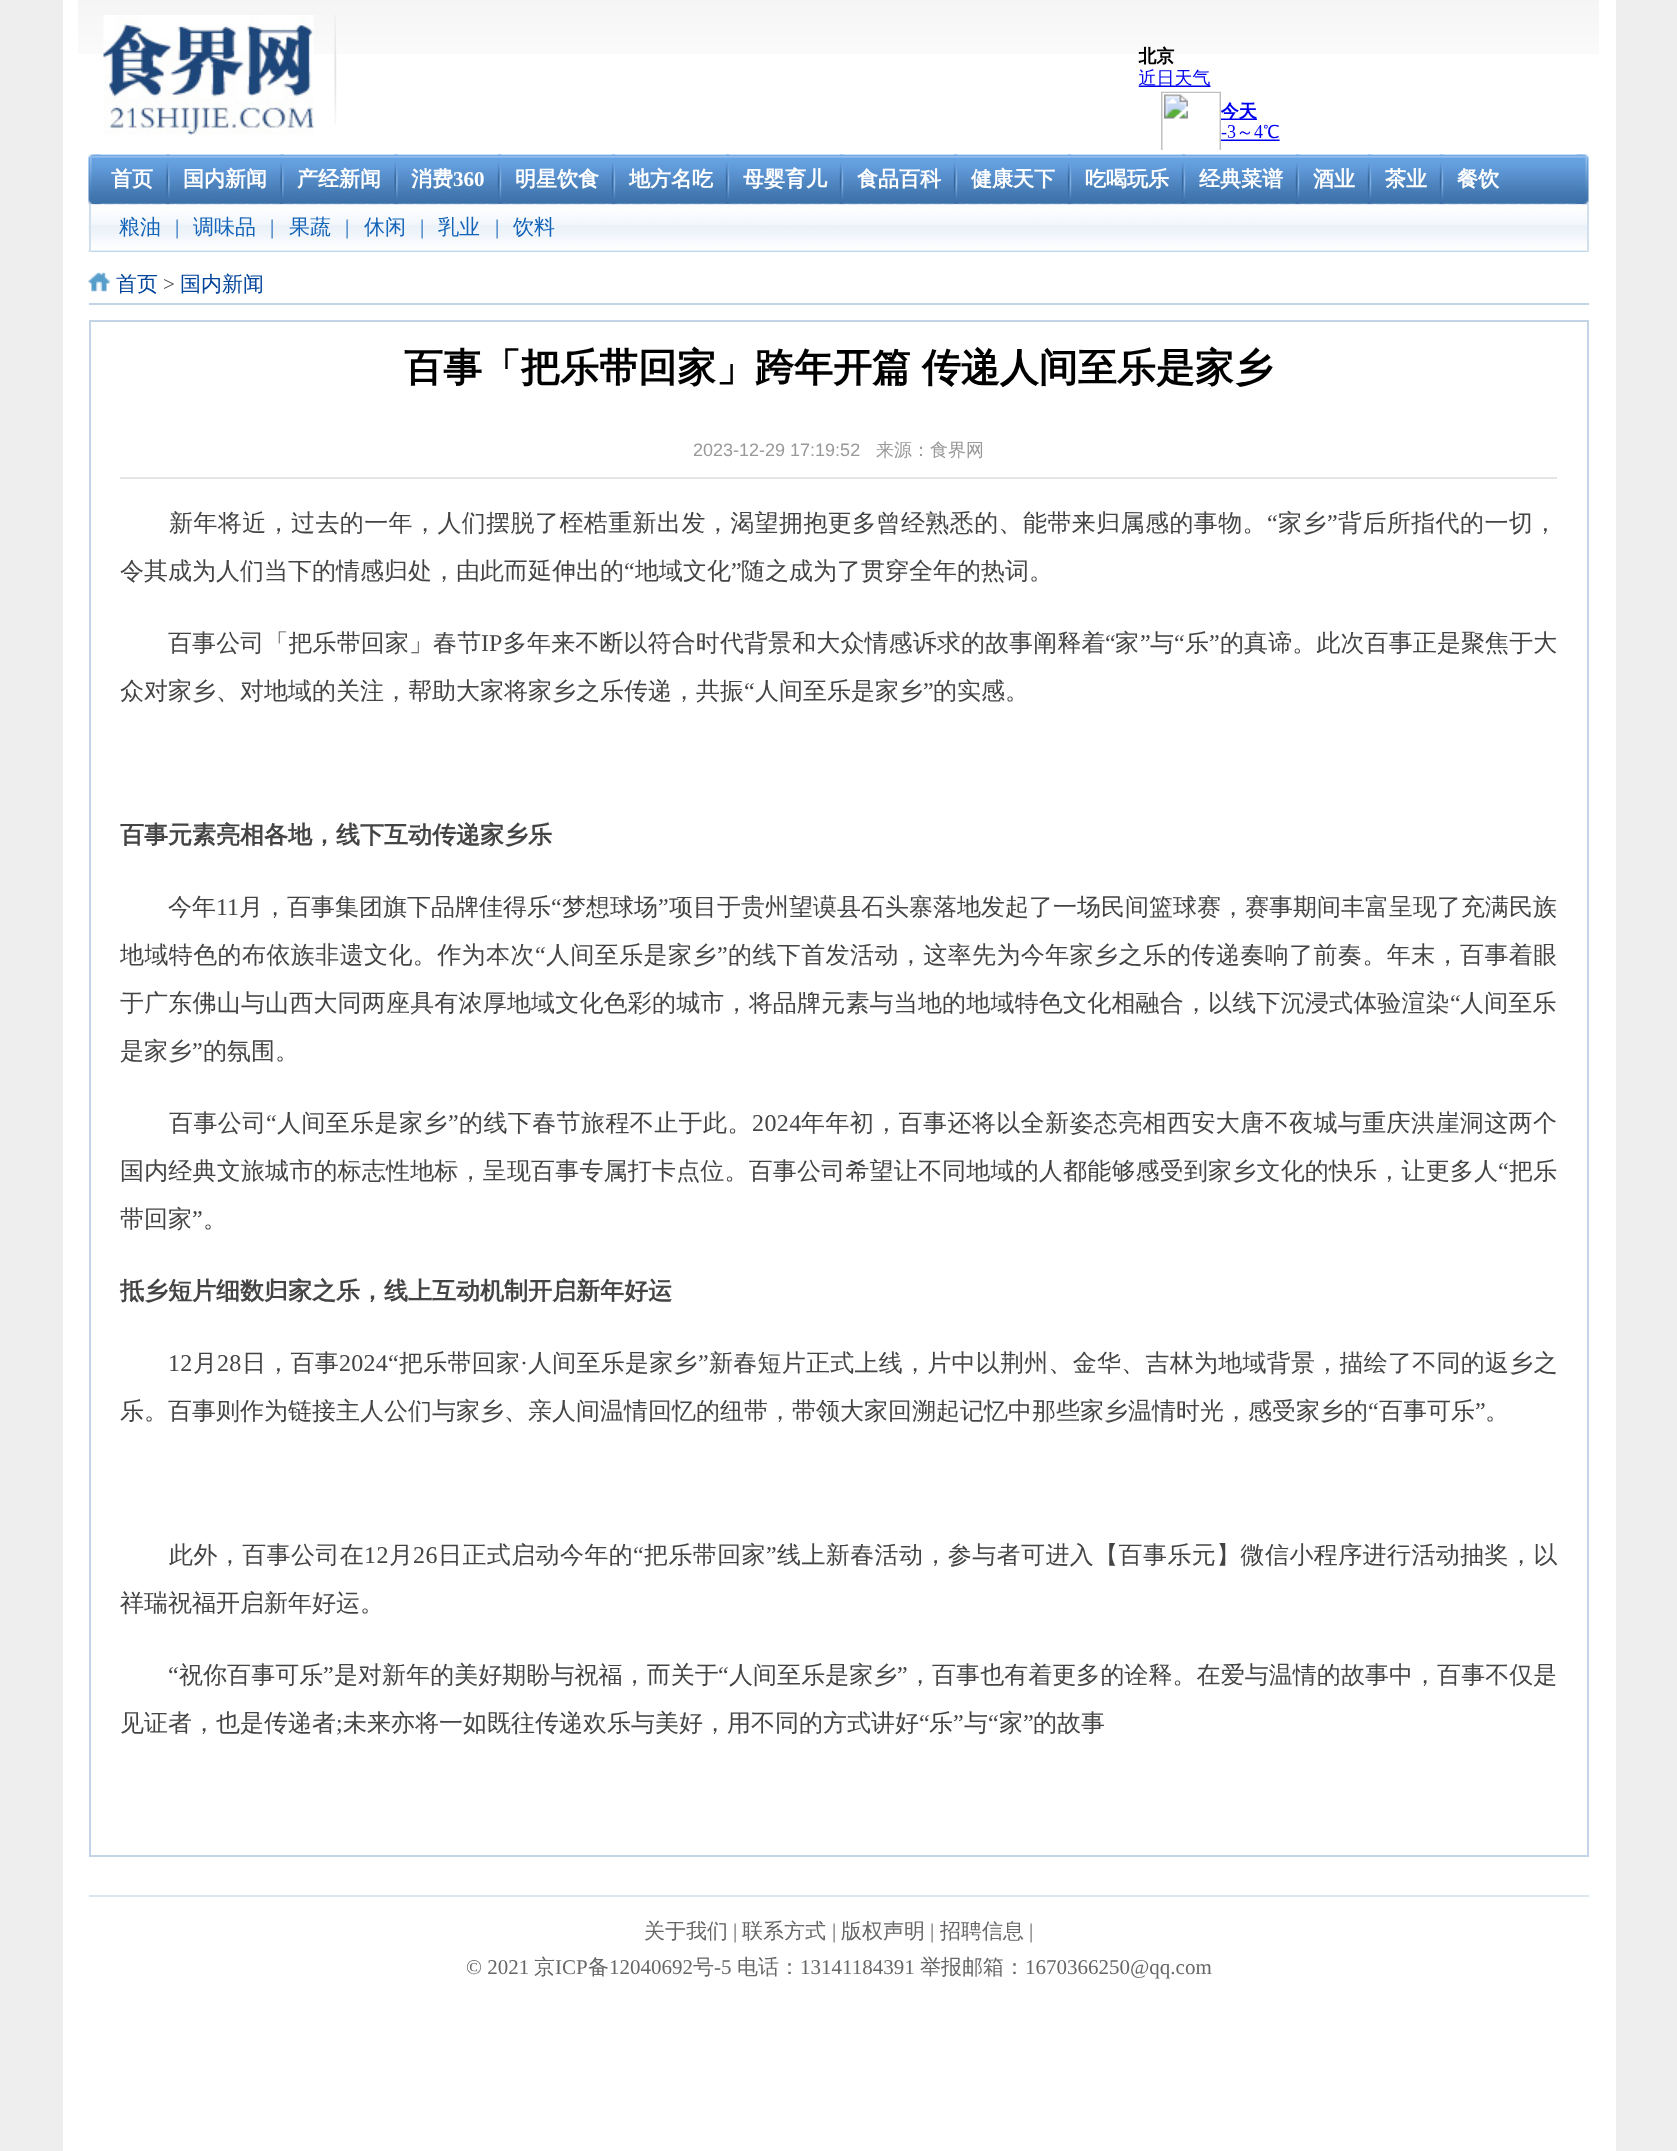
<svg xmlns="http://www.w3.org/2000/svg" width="1677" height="2151">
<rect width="100%" height="100%" fill="#eee"/>
<rect x="63" width="1553" height="2151" fill="#fff"/>
<image x="78" y="0" width="1521" height="54" href="media/1.png"/>
<image x="334" y="15" width="3" height="109" href="media/2.png"/>
<image x="103" y="15" width="211" height="120" href="media/3.png"/>
<image x="1138" y="46" width="142" height="104" href="media/4.png"/>
<image x="88" y="154" width="13" height="50" href="media/5.png"/>
<image x="1576" y="154" width="13" height="50" href="media/6.png"/>
<image x="96" y="154" width="1485" height="50" href="media/7.png"/>
<text x="111" y="186" style="font-family:WenQuanYi Zen Hei;font-size:21px;font-weight:bold;fill:#fff">首页</text>
<image x="166" y="154" width="4" height="50" href="media/8.png"/>
<text x="183" y="186" style="font-family:WenQuanYi Zen Hei;font-size:21px;font-weight:bold;fill:#fff">国内新闻</text>
<image x="280" y="154" width="4" height="50" href="media/9.png"/>
<text x="297" y="186" style="font-family:WenQuanYi Zen Hei;font-size:21px;font-weight:bold;fill:#fff">产经新闻</text>
<image x="394" y="154" width="4" height="50" href="media/10.png"/>
<text x="411" y="186" style="font-family:WenQuanYi Zen Hei;font-size:21px;font-weight:bold;fill:#fff">消费</text>
<text x="453" y="186" style="font-family:Liberation Serif;font-size:21px;font-weight:bold;fill:#fff">360</text>
<image x="497" y="154" width="5" height="50" href="media/11.png"/>
<text x="515" y="186" style="font-family:WenQuanYi Zen Hei;font-size:21px;font-weight:bold;fill:#fff">明星饮食</text>
<image x="611" y="154" width="5" height="50" href="media/12.png"/>
<text x="629" y="186" style="font-family:WenQuanYi Zen Hei;font-size:21px;font-weight:bold;fill:#fff">地方名吃</text>
<image x="725" y="154" width="5" height="50" href="media/11.png"/>
<text x="743" y="186" style="font-family:WenQuanYi Zen Hei;font-size:21px;font-weight:bold;fill:#fff">母婴育儿</text>
<image x="839" y="154" width="5" height="50" href="media/13.png"/>
<text x="857" y="186" style="font-family:WenQuanYi Zen Hei;font-size:21px;font-weight:bold;fill:#fff">食品百科</text>
<image x="953" y="154" width="5" height="50" href="media/14.png"/>
<text x="971" y="186" style="font-family:WenQuanYi Zen Hei;font-size:21px;font-weight:bold;fill:#fff">健康天下</text>
<image x="1067" y="154" width="5" height="50" href="media/15.png"/>
<text x="1085" y="186" style="font-family:WenQuanYi Zen Hei;font-size:21px;font-weight:bold;fill:#fff">吃喝玩乐</text>
<image x="1181" y="154" width="5" height="50" href="media/16.png"/>
<text x="1199" y="186" style="font-family:WenQuanYi Zen Hei;font-size:21px;font-weight:bold;fill:#fff">经典菜谱</text>
<image x="1295" y="154" width="5" height="50" href="media/15.png"/>
<text x="1313" y="186" style="font-family:WenQuanYi Zen Hei;font-size:21px;font-weight:bold;fill:#fff">酒业</text>
<image x="1367" y="154" width="5" height="50" href="media/15.png"/>
<text x="1385" y="186" style="font-family:WenQuanYi Zen Hei;font-size:21px;font-weight:bold;fill:#fff">茶业</text>
<image x="1439" y="154" width="5" height="50" href="media/17.png"/>
<text x="1457" y="186" style="font-family:WenQuanYi Zen Hei;font-size:21px;font-weight:bold;fill:#fff">餐饮</text>
<image x="88" y="204" width="1499" height="48" href="media/18.png"/>
<rect x="1587" y="204" width="2" height="48" fill="#d2dfed"/>
<rect x="89" y="204" width="2" height="48" fill="#d2dfed"/>
<text x="119" y="234" style="font-family:WenQuanYi Zen Hei;font-size:21px;font-weight:500;fill:#1363b7">粮油</text>
<text x="175" y="234" style="font-family:Liberation Serif;font-size:21px;fill:#1363b7">|</text>
<text x="193" y="234" style="font-family:WenQuanYi Zen Hei;font-size:21px;font-weight:500;fill:#1363b7">调味品</text>
<text x="270" y="234" style="font-family:Liberation Serif;font-size:21px;fill:#1363b7">|</text>
<text x="289" y="234" style="font-family:WenQuanYi Zen Hei;font-size:21px;font-weight:500;fill:#1363b7">果蔬</text>
<text x="345" y="234" style="font-family:Liberation Serif;font-size:21px;fill:#1363b7">|</text>
<text x="364" y="234" style="font-family:WenQuanYi Zen Hei;font-size:21px;font-weight:500;fill:#1363b7">休闲</text>
<text x="420" y="234" style="font-family:Liberation Serif;font-size:21px;fill:#1363b7">|</text>
<text x="438" y="234" style="font-family:WenQuanYi Zen Hei;font-size:21px;font-weight:500;fill:#1363b7">乳业</text>
<text x="495" y="234" style="font-family:Liberation Serif;font-size:21px;fill:#1363b7">|</text>
<text x="513" y="234" style="font-family:WenQuanYi Zen Hei;font-size:21px;font-weight:500;fill:#1363b7">饮料</text>
<image x="88" y="272" width="22" height="20" href="media/19.png"/>
<rect x="89" y="303" width="1500" height="2" fill="#c3d4e7"/>
<text x="116" y="291" style="font-family:WenQuanYi Zen Hei;font-size:21px;font-weight:500;fill:#049">首页</text>
<text x="163" y="291" style="font-family:Liberation Serif;font-size:21px;fill:#444">&gt;</text>
<text x="180" y="291" style="font-family:WenQuanYi Zen Hei;font-size:21px;font-weight:500;fill:#049">国内新闻</text>
<rect x="90" y="321" width="1498" height="1535" fill="none" stroke="#c3d4e7" stroke-width="2"/>
<rect x="120" y="477" width="1437" height="2" fill="#e5e5e5"/>
<text x="404" y="381" word-spacing="-1" style="font-family:WenQuanYi Zen Hei;font-size:39px;font-weight:bold;fill:#000">百事「把乐带回家」跨年开篇 传递人间至乐是家乡</text>
<text x="693" y="456" style="font-family:Liberation Sans;font-size:18px;fill:#999">2023-12-29 17:19:52</text>
<text x="876" y="456" style="font-family:WenQuanYi Zen Hei;font-size:18px;font-weight:500;fill:#999">来源：食界网</text>
<text x="169" y="531" style="font-family:WenQuanYi Zen Hei;font-size:24px;font-weight:500;letter-spacing:0.4px;fill:#444">新年将近，过去的一年，人们摆脱了桎梏重新出发，渴望拥抱更多曾经熟悉的、能带来归属感的事物。</text>
<text x="1267" y="531" style="font-family:Liberation Serif;font-size:24px;letter-spacing:0.4px;fill:#444">“</text>
<text x="1278" y="531" style="font-family:WenQuanYi Zen Hei;font-size:24px;font-weight:500;letter-spacing:0.4px;fill:#444">家乡</text>
<text x="1327" y="531" style="font-family:Liberation Serif;font-size:24px;letter-spacing:0.4px;fill:#444">”</text>
<text x="1338" y="531" style="font-family:WenQuanYi Zen Hei;font-size:24px;font-weight:500;letter-spacing:0.4px;fill:#444">背后所指代的一切，</text>
<text x="120" y="579" style="font-family:WenQuanYi Zen Hei;font-size:24px;font-weight:500;fill:#444">令其成为人们当下的情感归处，由此而延伸出的</text>
<text x="624" y="579" style="font-family:Liberation Serif;font-size:24px;fill:#444">“</text>
<text x="635" y="579" style="font-family:WenQuanYi Zen Hei;font-size:24px;font-weight:500;fill:#444">地域文化</text>
<text x="731" y="579" style="font-family:Liberation Serif;font-size:24px;fill:#444">”</text>
<text x="741" y="579" style="font-family:WenQuanYi Zen Hei;font-size:24px;font-weight:500;fill:#444">随之成为了贯穿全年的热词。</text>
<text x="168" y="651" style="font-family:WenQuanYi Zen Hei;font-size:24px;font-weight:500;letter-spacing:0.1px;fill:#444">百事公司「把乐带回家」春节</text>
<text x="481" y="651" style="font-family:Liberation Serif;font-size:24px;letter-spacing:0.1px;fill:#444">IP</text>
<text x="503" y="651" style="font-family:WenQuanYi Zen Hei;font-size:24px;font-weight:500;letter-spacing:0.1px;fill:#444">多年来不断以符合时代背景和大众情感诉求的故事阐释着</text>
<text x="1105" y="651" style="font-family:Liberation Serif;font-size:24px;letter-spacing:0.1px;fill:#444">“</text>
<text x="1115" y="651" style="font-family:WenQuanYi Zen Hei;font-size:24px;font-weight:500;letter-spacing:0.1px;fill:#444">家</text>
<text x="1140" y="651" style="font-family:Liberation Serif;font-size:24px;letter-spacing:0.1px;fill:#444">”</text>
<text x="1150" y="651" style="font-family:WenQuanYi Zen Hei;font-size:24px;font-weight:500;letter-spacing:0.1px;fill:#444">与</text>
<text x="1174" y="651" style="font-family:Liberation Serif;font-size:24px;letter-spacing:0.1px;fill:#444">“</text>
<text x="1185" y="651" style="font-family:WenQuanYi Zen Hei;font-size:24px;font-weight:500;letter-spacing:0.1px;fill:#444">乐</text>
<text x="1209" y="651" style="font-family:Liberation Serif;font-size:24px;letter-spacing:0.1px;fill:#444">”</text>
<text x="1220" y="651" style="font-family:WenQuanYi Zen Hei;font-size:24px;font-weight:500;letter-spacing:0.1px;fill:#444">的真谛。此次百事正是聚焦于大</text>
<text x="120" y="699" style="font-family:WenQuanYi Zen Hei;font-size:24px;font-weight:500;fill:#444">众对家乡、对地域的关注，帮助大家将家乡之乐传递，共振</text>
<text x="744" y="699" style="font-family:Liberation Serif;font-size:24px;fill:#444">“</text>
<text x="755" y="699" style="font-family:WenQuanYi Zen Hei;font-size:24px;font-weight:500;fill:#444">人间至乐是家乡</text>
<text x="923" y="699" style="font-family:Liberation Serif;font-size:24px;fill:#444">”</text>
<text x="933" y="699" style="font-family:WenQuanYi Zen Hei;font-size:24px;font-weight:500;fill:#444">的实感。</text>
<text x="120" y="843" style="font-family:WenQuanYi Zen Hei;font-size:24px;font-weight:bold;fill:#444">百事元素亮相各地，线下互动传递家乡乐</text>
<text x="168" y="915" style="font-family:WenQuanYi Zen Hei;font-size:24px;font-weight:500;fill:#444">今年</text>
<text x="216" y="915" style="font-family:Liberation Serif;font-size:24px;fill:#444">11</text>
<text x="239" y="915" style="font-family:WenQuanYi Zen Hei;font-size:24px;font-weight:500;fill:#444">月，百事集团旗下品牌佳得乐</text>
<text x="551" y="915" style="font-family:Liberation Serif;font-size:24px;fill:#444">“</text>
<text x="562" y="915" style="font-family:WenQuanYi Zen Hei;font-size:24px;font-weight:500;fill:#444">梦想球场</text>
<text x="658" y="915" style="font-family:Liberation Serif;font-size:24px;fill:#444">”</text>
<text x="669" y="915" style="font-family:WenQuanYi Zen Hei;font-size:24px;font-weight:500;fill:#444">项目于贵州望谟县石头寨落地发起了一场民间篮球赛，赛事期间丰富呈现了充满民族</text>
<text x="120" y="963" style="font-family:WenQuanYi Zen Hei;font-size:24px;font-weight:500;letter-spacing:0.4px;fill:#444">地域特色的布依族非遗文化。作为本次</text>
<text x="535" y="963" style="font-family:Liberation Serif;font-size:24px;letter-spacing:0.4px;fill:#444">“</text>
<text x="546" y="963" style="font-family:WenQuanYi Zen Hei;font-size:24px;font-weight:500;letter-spacing:0.4px;fill:#444">人间至乐是家乡</text>
<text x="717" y="963" style="font-family:Liberation Serif;font-size:24px;letter-spacing:0.4px;fill:#444">”</text>
<text x="728" y="963" style="font-family:WenQuanYi Zen Hei;font-size:24px;font-weight:500;letter-spacing:0.4px;fill:#444">的线下首发活动，这率先为今年家乡之乐的传递奏响了前奏。年末，百事着眼</text>
<text x="120" y="1011" style="font-family:WenQuanYi Zen Hei;font-size:24px;font-weight:500;letter-spacing:0.18px;fill:#444">于广东佛山与山西大同两座具有浓厚地域文化色彩的城市，将品牌元素与当地的地域特色文化相融合，以线下沉浸式体验渲染</text>
<text x="1450" y="1011" style="font-family:Liberation Serif;font-size:24px;letter-spacing:0.18px;fill:#444">“</text>
<text x="1460" y="1011" style="font-family:WenQuanYi Zen Hei;font-size:24px;font-weight:500;letter-spacing:0.18px;fill:#444">人间至乐</text>
<text x="120" y="1059" style="font-family:WenQuanYi Zen Hei;font-size:24px;font-weight:500;fill:#444">是家乡</text>
<text x="192" y="1059" style="font-family:Liberation Serif;font-size:24px;fill:#444">”</text>
<text x="203" y="1059" style="font-family:WenQuanYi Zen Hei;font-size:24px;font-weight:500;fill:#444">的氛围。</text>
<text x="169" y="1131" style="font-family:WenQuanYi Zen Hei;font-size:24px;font-weight:500;letter-spacing:0.4px;fill:#444">百事公司</text>
<text x="266" y="1131" style="font-family:Liberation Serif;font-size:24px;letter-spacing:0.4px;fill:#444">“</text>
<text x="277" y="1131" style="font-family:WenQuanYi Zen Hei;font-size:24px;font-weight:500;letter-spacing:0.4px;fill:#444">人间至乐是家乡</text>
<text x="448" y="1131" style="font-family:Liberation Serif;font-size:24px;letter-spacing:0.4px;fill:#444">”</text>
<text x="459" y="1131" style="font-family:WenQuanYi Zen Hei;font-size:24px;font-weight:500;letter-spacing:0.4px;fill:#444">的线下春节旅程不止于此。</text>
<text x="752" y="1131" style="font-family:Liberation Serif;font-size:24px;letter-spacing:0.4px;fill:#444">2024</text>
<text x="801" y="1131" style="font-family:WenQuanYi Zen Hei;font-size:24px;font-weight:500;letter-spacing:0.4px;fill:#444">年年初，百事还将以全新姿态亮相西安大唐不夜城与重庆洪崖洞这两个</text>
<text x="120" y="1179" style="font-family:WenQuanYi Zen Hei;font-size:24px;font-weight:500;letter-spacing:0.18px;fill:#444">国内经典文旅城市的标志性地标，呈现百事专属打卡点位。百事公司希望让不同地域的人都能够感受到家乡文化的快乐，让更多人</text>
<text x="1498" y="1179" style="font-family:Liberation Serif;font-size:24px;letter-spacing:0.18px;fill:#444">“</text>
<text x="1509" y="1179" style="font-family:WenQuanYi Zen Hei;font-size:24px;font-weight:500;letter-spacing:0.18px;fill:#444">把乐</text>
<text x="120" y="1227" style="font-family:WenQuanYi Zen Hei;font-size:24px;font-weight:500;fill:#444">带回家</text>
<text x="192" y="1227" style="font-family:Liberation Serif;font-size:24px;fill:#444">”</text>
<text x="203" y="1227" style="font-family:WenQuanYi Zen Hei;font-size:24px;font-weight:500;fill:#444">。</text>
<text x="120" y="1299" style="font-family:WenQuanYi Zen Hei;font-size:24px;font-weight:bold;fill:#444">抵乡短片细数归家之乐，线上互动机制开启新年好运</text>
<text x="168" y="1371" style="font-family:Liberation Serif;font-size:24px;letter-spacing:0.25px;fill:#444">12</text>
<text x="193" y="1371" style="font-family:WenQuanYi Zen Hei;font-size:24px;font-weight:500;letter-spacing:0.25px;fill:#444">月</text>
<text x="217" y="1371" style="font-family:Liberation Serif;font-size:24px;letter-spacing:0.25px;fill:#444">28</text>
<text x="242" y="1371" style="font-family:WenQuanYi Zen Hei;font-size:24px;font-weight:500;letter-spacing:0.25px;fill:#444">日，百事</text>
<text x="339" y="1371" style="font-family:Liberation Serif;font-size:24px;letter-spacing:0.25px;fill:#444">2024“</text>
<text x="399" y="1371" style="font-family:WenQuanYi Zen Hei;font-size:24px;font-weight:500;letter-spacing:0.25px;fill:#444">把乐带回家</text>
<text x="528" y="1371" style="font-family:WenQuanYi Zen Hei;font-size:24px;font-weight:500;letter-spacing:0.25px;fill:#444">人间至乐是家乡</text>
<text x="698" y="1371" style="font-family:Liberation Serif;font-size:24px;letter-spacing:0.25px;fill:#444">”</text>
<text x="709" y="1371" style="font-family:WenQuanYi Zen Hei;font-size:24px;font-weight:500;letter-spacing:0.25px;fill:#444">新春短片正式上线，片中以荆州、金华、吉林为地域背景，描绘了不同的返乡之</text>
<text x="520" y="1371" style="font-family:Liberation Serif;font-size:24px;letter-spacing:0.25px;fill:#444">·</text>
<text x="120" y="1419" style="font-family:WenQuanYi Zen Hei;font-size:24px;font-weight:500;fill:#444">乐。百事则作为链接主人公们与家乡、亲人间温情回忆的纽带，带领大家回溯起记忆中那些家乡温情时光，感受家乡的</text>
<text x="1368" y="1419" style="font-family:Liberation Serif;font-size:24px;fill:#444">“</text>
<text x="1379" y="1419" style="font-family:WenQuanYi Zen Hei;font-size:24px;font-weight:500;fill:#444">百事可乐</text>
<text x="1475" y="1419" style="font-family:Liberation Serif;font-size:24px;fill:#444">”</text>
<text x="1485" y="1419" style="font-family:WenQuanYi Zen Hei;font-size:24px;font-weight:500;fill:#444">。</text>
<text x="169" y="1563" style="font-family:WenQuanYi Zen Hei;font-size:24px;font-weight:500;letter-spacing:0.4px;fill:#444">此外，百事公司在</text>
<text x="364" y="1563" style="font-family:Liberation Serif;font-size:24px;letter-spacing:0.4px;fill:#444">12</text>
<text x="389" y="1563" style="font-family:WenQuanYi Zen Hei;font-size:24px;font-weight:500;letter-spacing:0.4px;fill:#444">月</text>
<text x="413" y="1563" style="font-family:Liberation Serif;font-size:24px;letter-spacing:0.4px;fill:#444">26</text>
<text x="438" y="1563" style="font-family:WenQuanYi Zen Hei;font-size:24px;font-weight:500;letter-spacing:0.4px;fill:#444">日正式启动今年的</text>
<text x="633" y="1563" style="font-family:Liberation Serif;font-size:24px;letter-spacing:0.4px;fill:#444">“</text>
<text x="644" y="1563" style="font-family:WenQuanYi Zen Hei;font-size:24px;font-weight:500;letter-spacing:0.4px;fill:#444">把乐带回家</text>
<text x="766" y="1563" style="font-family:Liberation Serif;font-size:24px;letter-spacing:0.4px;fill:#444">”</text>
<text x="777" y="1563" style="font-family:WenQuanYi Zen Hei;font-size:24px;font-weight:500;letter-spacing:0.4px;fill:#444">线上新春活动，参与者可进入【百事乐元】微信小程序进行活动抽奖，以</text>
<text x="120" y="1611" style="font-family:WenQuanYi Zen Hei;font-size:24px;font-weight:500;fill:#444">祥瑞祝福开启新年好运。</text>
<text x="168" y="1683" style="font-family:Liberation Serif;font-size:24px;letter-spacing:0.05px;fill:#444">“</text>
<text x="179" y="1683" style="font-family:WenQuanYi Zen Hei;font-size:24px;font-weight:500;letter-spacing:0.05px;fill:#444">祝你百事可乐</text>
<text x="323" y="1683" style="font-family:Liberation Serif;font-size:24px;letter-spacing:0.05px;fill:#444">”</text>
<text x="334" y="1683" style="font-family:WenQuanYi Zen Hei;font-size:24px;font-weight:500;letter-spacing:0.05px;fill:#444">是对新年的美好期盼与祝福，而关于</text>
<text x="718" y="1683" style="font-family:Liberation Serif;font-size:24px;letter-spacing:0.05px;fill:#444">“</text>
<text x="729" y="1683" style="font-family:WenQuanYi Zen Hei;font-size:24px;font-weight:500;letter-spacing:0.05px;fill:#444">人间至乐是家乡</text>
<text x="897" y="1683" style="font-family:Liberation Serif;font-size:24px;letter-spacing:0.05px;fill:#444">”</text>
<text x="908" y="1683" style="font-family:WenQuanYi Zen Hei;font-size:24px;font-weight:500;letter-spacing:0.05px;fill:#444">，百事也有着更多的诠释。在爱与温情的故事中，百事不仅是</text>
<text x="120" y="1731" style="font-family:WenQuanYi Zen Hei;font-size:24px;font-weight:500;fill:#444">见证者，也是传递者</text>
<text x="336" y="1731" style="font-family:Liberation Serif;font-size:24px;fill:#444">;</text>
<text x="343" y="1731" style="font-family:WenQuanYi Zen Hei;font-size:24px;font-weight:500;fill:#444">未来亦将一如既往传递欢乐与美好，用不同的方式讲好</text>
<text x="919" y="1731" style="font-family:Liberation Serif;font-size:24px;fill:#444">“</text>
<text x="929" y="1731" style="font-family:WenQuanYi Zen Hei;font-size:24px;font-weight:500;fill:#444">乐</text>
<text x="953" y="1731" style="font-family:Liberation Serif;font-size:24px;fill:#444">”</text>
<text x="964" y="1731" style="font-family:WenQuanYi Zen Hei;font-size:24px;font-weight:500;fill:#444">与</text>
<text x="988" y="1731" style="font-family:Liberation Serif;font-size:24px;fill:#444">“</text>
<text x="999" y="1731" style="font-family:WenQuanYi Zen Hei;font-size:24px;font-weight:500;fill:#444">家</text>
<text x="1023" y="1731" style="font-family:Liberation Serif;font-size:24px;fill:#444">”</text>
<text x="1033" y="1731" style="font-family:WenQuanYi Zen Hei;font-size:24px;font-weight:500;fill:#444">的故事</text>
<rect x="89" y="1895" width="1500" height="2" fill="#dbe7ed"/>
<text x="644" y="1938" style="font-family:WenQuanYi Zen Hei;font-size:21px;font-weight:500;fill:#666">关于我们</text>
<text x="733" y="1938" style="font-family:Liberation Serif;font-size:21px;fill:#666">|</text>
<text x="742" y="1938" style="font-family:WenQuanYi Zen Hei;font-size:21px;font-weight:500;fill:#666">联系方式</text>
<text x="832" y="1938" style="font-family:Liberation Serif;font-size:21px;fill:#666">|</text>
<text x="841" y="1938" style="font-family:WenQuanYi Zen Hei;font-size:21px;font-weight:500;fill:#666">版权声明</text>
<text x="930" y="1938" style="font-family:Liberation Serif;font-size:21px;fill:#666">|</text>
<text x="940" y="1938" style="font-family:WenQuanYi Zen Hei;font-size:21px;font-weight:500;fill:#666">招聘信息</text>
<text x="1029" y="1938" style="font-family:Liberation Serif;font-size:21px;fill:#666">|</text>
<text x="466" y="1974" style="font-family:Liberation Serif;font-size:21px;fill:#666">© 2021</text>
<text x="534" y="1974" style="font-family:WenQuanYi Zen Hei;font-size:21px;font-weight:500;fill:#666">京</text>
<text x="555" y="1974" style="font-family:Liberation Serif;font-size:21px;fill:#666">ICP</text>
<text x="588" y="1974" style="font-family:WenQuanYi Zen Hei;font-size:21px;font-weight:500;fill:#666">备</text>
<text x="609" y="1974" style="font-family:Liberation Serif;font-size:21px;fill:#666">12040692</text>
<text x="693" y="1974" style="font-family:WenQuanYi Zen Hei;font-size:21px;font-weight:500;fill:#666">号</text>
<text x="714" y="1974" style="font-family:Liberation Serif;font-size:21px;fill:#666">-5</text>
<text x="737" y="1974" style="font-family:WenQuanYi Zen Hei;font-size:21px;font-weight:500;fill:#666">电话：</text>
<text x="800" y="1974" style="font-family:Liberation Serif;font-size:21px;fill:#666">13141184391</text>
<text x="920" y="1974" style="font-family:WenQuanYi Zen Hei;font-size:21px;font-weight:500;fill:#666">举报邮箱：</text>
<text x="1025" y="1974" style="font-family:Liberation Serif;font-size:21px;fill:#666">1670366250@qq.com</text>
</svg>
